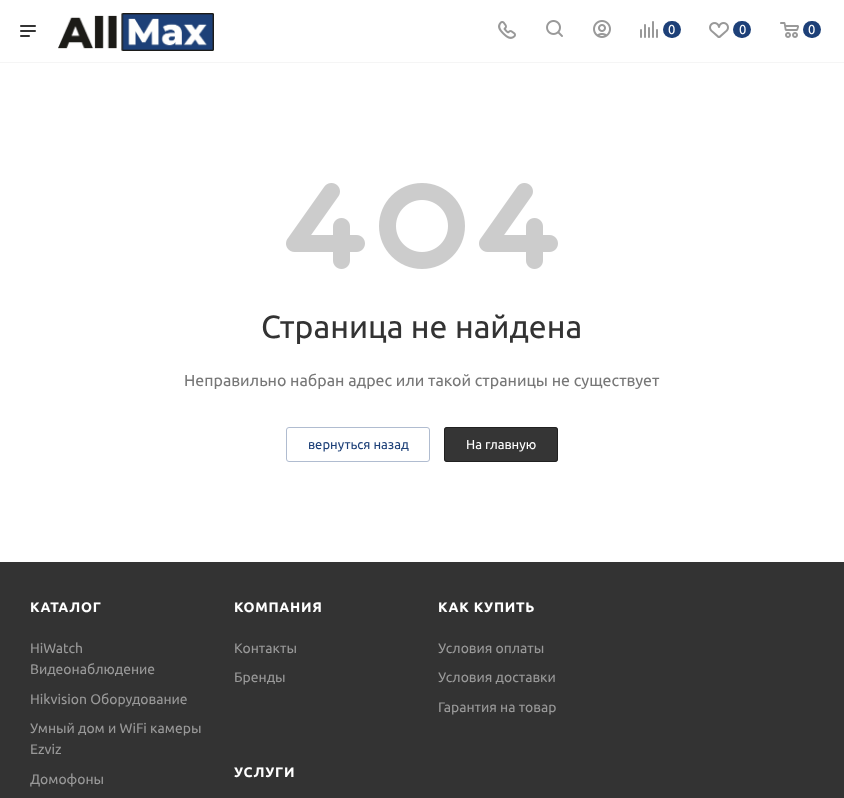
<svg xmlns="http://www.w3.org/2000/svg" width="844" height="798">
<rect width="100%" height="100%" fill="#fff"/>
<rect y="62" width="844" height="1" fill="#f5f5f5"/>
<image x="20" y="25" width="16" height="12" href="media/1.png"/>
<image x="58" y="13" width="156" height="38" href="media/2.png"/>
<image x="498" y="21" width="18" height="18" href="media/3.png"/>
<image x="546" y="20" width="17" height="17" href="media/4.png"/>
<image x="593" y="20" width="18" height="18" href="media/5.png"/>
<image x="640" y="21" width="18" height="17" href="media/6.png"/>
<rect x="663" y="21" width="18" height="17" rx="8.5" fill="#1d4078"/>
<text x="668" y="34" style="font-family:Ubuntu;font-size:13px;fill:#fff">0</text>
<image x="709" y="22" width="20" height="16" href="media/7.png"/>
<rect x="733" y="21" width="18" height="17" rx="8.5" fill="#1d4078"/>
<text x="739" y="34" style="font-family:Ubuntu;font-size:13px;fill:#fff">0</text>
<image x="780" y="22" width="19" height="16" href="media/8.png"/>
<rect x="803" y="21" width="18" height="17" rx="8.5" fill="#1d4078"/>
<text x="808" y="34" style="font-family:Ubuntu;font-size:13px;fill:#fff">0</text>
<image x="286" y="183" width="272" height="86" href="media/9.png"/>
<text x="261" y="338" style="font-family:Ubuntu;font-size:32px;fill:#333">Страница не найдена</text>
<text x="184" y="386" style="font-family:Ubuntu;font-size:16px;fill:#777">Неправильно набран адрес или такой страницы не существует</text>
<rect x="286.5" y="427.5" width="143" height="34" rx="2.5" fill="none" stroke="#b0bcd0"/>
<text x="308" y="449" style="font-family:Ubuntu;font-size:13px;fill:#1d4078">вернуться назад</text>
<rect x="444" y="427" width="114" height="35" rx="3" fill="#353535"/>
<rect x="444.5" y="427.5" width="113" height="34" rx="2.5" fill="none" stroke="#1f1f1fe6"/>
<text x="466" y="449" style="font-family:Ubuntu;font-size:13px;fill:#fff">На главную</text>
<rect y="562" width="844" height="236" fill="#333"/>
<text x="30" y="612" style="font-family:Ubuntu;font-size:13.9px;font-weight:bold;letter-spacing:0.75px;fill:#fff">КАТАЛОГ</text>
<text x="30" y="653" style="font-family:Ubuntu;font-size:13.9px;fill:#999">HiWatch</text>
<text x="30" y="674" style="font-family:Ubuntu;font-size:13.9px;fill:#999">Видеонаблюдение</text>
<text x="30" y="704" style="font-family:Ubuntu;font-size:13.9px;fill:#999">Hikvision Оборудование</text>
<text x="30" y="733" style="font-family:Ubuntu;font-size:13.9px;fill:#999">Умный дом и WiFi камеры</text>
<text x="30" y="754" style="font-family:Ubuntu;font-size:13.9px;fill:#999">Ezviz</text>
<text x="30" y="784" style="font-family:Ubuntu;font-size:13.9px;fill:#999">Домофоны</text>
<text x="234" y="612" style="font-family:Ubuntu;font-size:13.9px;font-weight:bold;letter-spacing:0.75px;fill:#fff">КОМПАНИЯ</text>
<text x="234" y="653" style="font-family:Ubuntu;font-size:13.9px;fill:#999">Контакты</text>
<text x="234" y="682" style="font-family:Ubuntu;font-size:13.9px;fill:#999">Бренды</text>
<text x="234" y="777" style="font-family:Ubuntu;font-size:13.9px;font-weight:bold;letter-spacing:0.75px;fill:#fff">УСЛУГИ</text>
<text x="438" y="612" style="font-family:Ubuntu;font-size:13.9px;font-weight:bold;letter-spacing:0.75px;fill:#fff">КАК КУПИТЬ</text>
<text x="438" y="653" style="font-family:Ubuntu;font-size:13.9px;fill:#999">Условия оплаты</text>
<text x="438" y="682" style="font-family:Ubuntu;font-size:13.9px;fill:#999">Условия доставки</text>
<text x="438" y="712" style="font-family:Ubuntu;font-size:13.9px;fill:#999">Гарантия на товар</text>
</svg>
